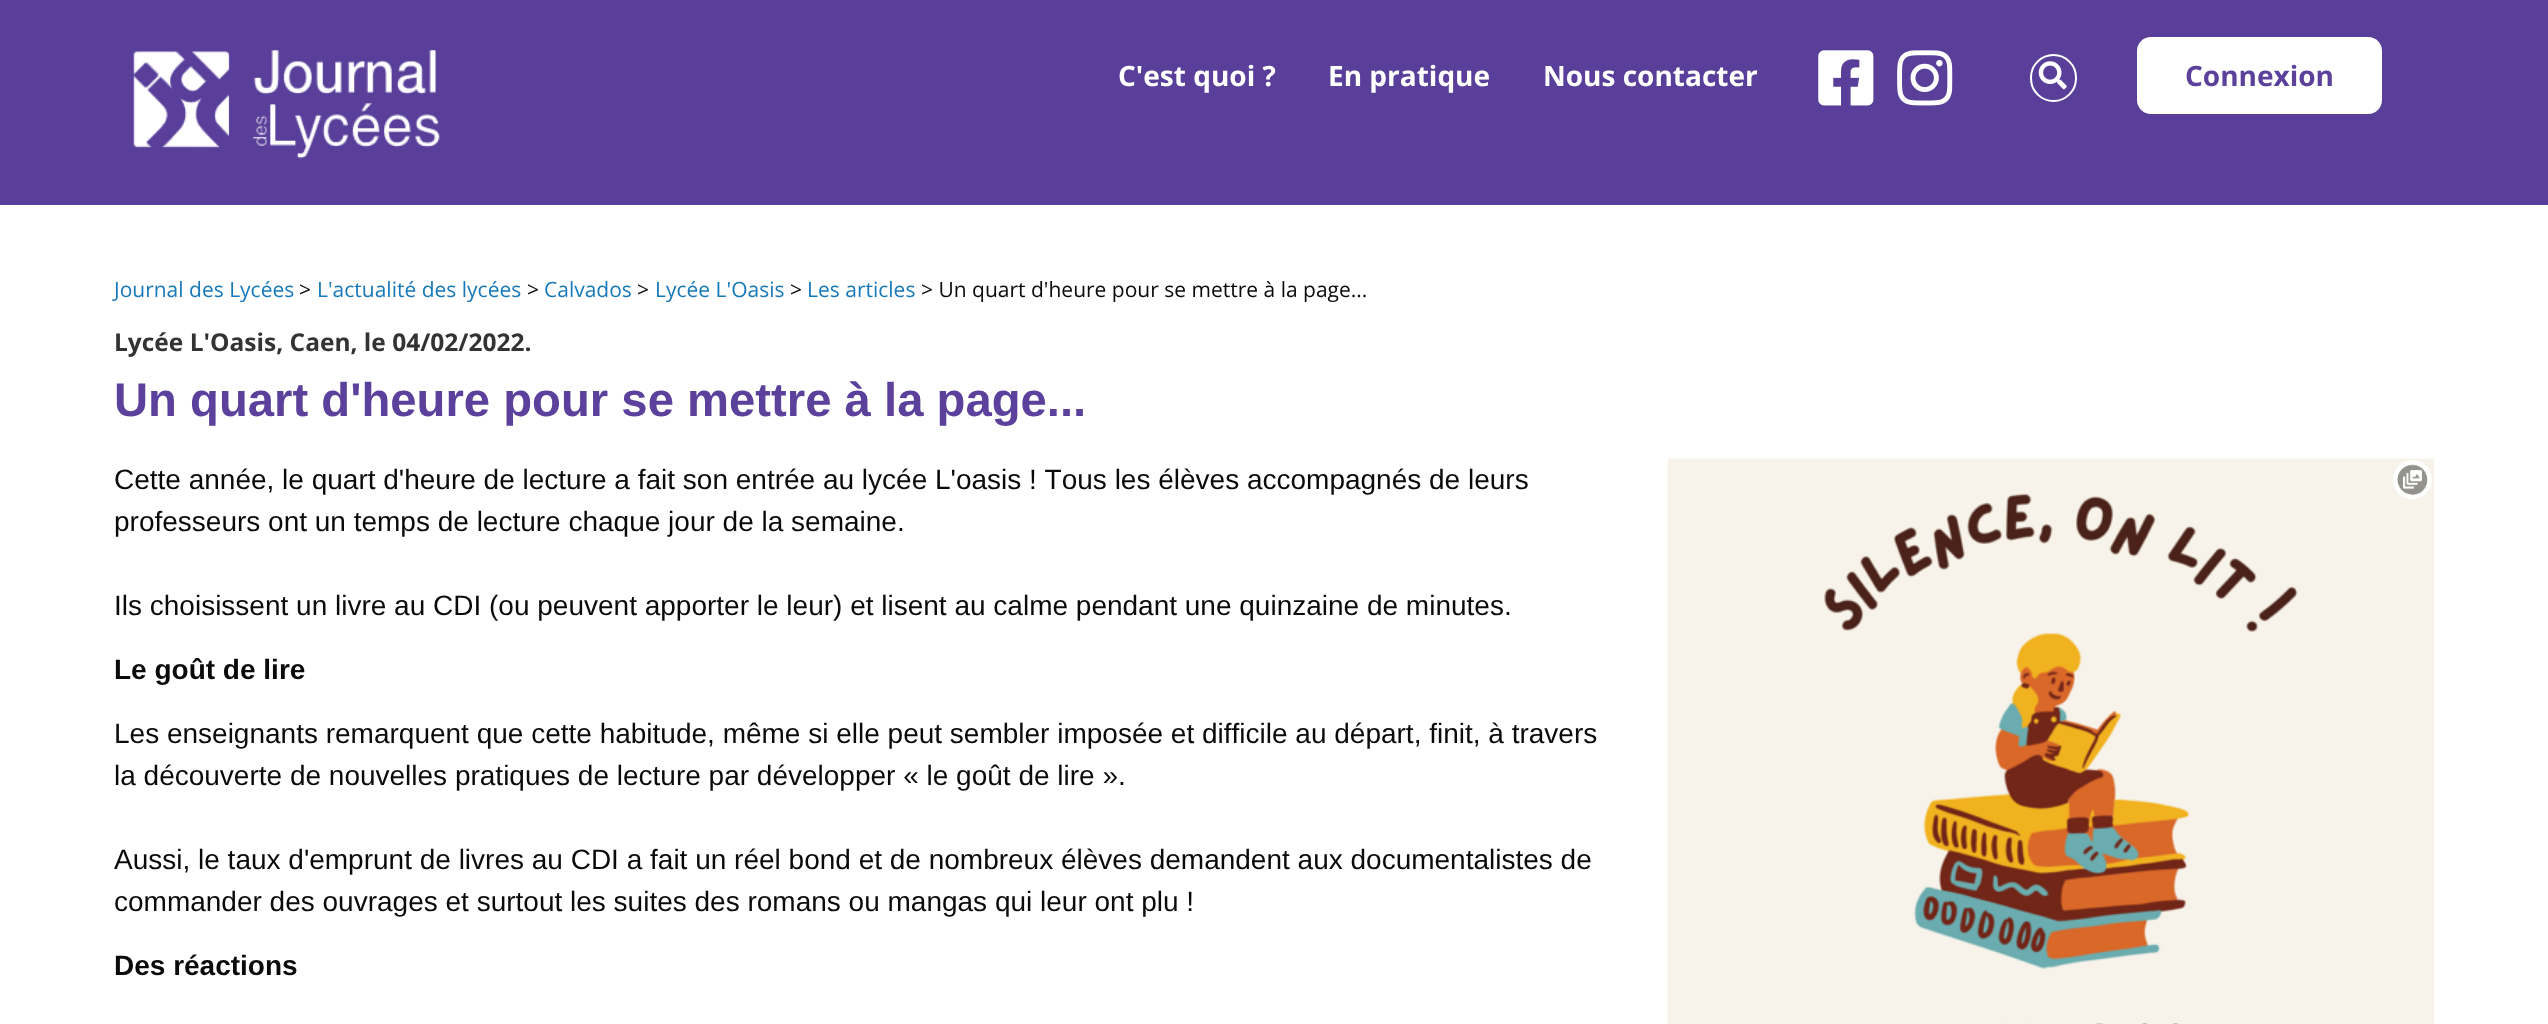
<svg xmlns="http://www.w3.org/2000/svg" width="2548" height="1024">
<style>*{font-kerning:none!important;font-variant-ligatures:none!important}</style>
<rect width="100%" height="100%" fill="#fff"/>
<rect width="2548" height="205" fill="#593f9a"/>
<image x="133" y="50" width="307" height="109" href="media/1.png"/>
<text x="1118" y="86" style="font-family:Open Sans;font-size:28px;font-weight:bold;fill:#fff">C'est quoi ?</text>
<text x="1328" y="86" style="font-family:Open Sans;font-size:28px;font-weight:bold;fill:#fff">En pratique</text>
<text x="1543" y="86" style="font-family:Open Sans;font-size:28px;font-weight:bold;fill:#fff">Nous contacter</text>
<image x="1818" y="50" width="56" height="56" href="media/2.png"/>
<image x="1897" y="50" width="56" height="56" href="media/3.png"/>
<rect x="2031" y="55" width="45" height="46" rx="22.5" fill="none" stroke="#fff" stroke-width="2"/>
<image x="2038" y="61" width="29" height="29" href="media/4.png"/>
<rect x="2137" y="37" width="245" height="77" rx="14" fill="#fff"/>
<text x="2185" y="86" style="font-family:Open Sans;font-size:28px;font-weight:bold;fill:#5b409c">Connexion</text>
<text x="114" y="297" style="font-family:Open Sans;font-size:21px;fill:#1779ba">Journal des Lycées</text>
<text x="299" y="297" style="font-family:Open Sans;font-size:21px;fill:#0a0a0a">&gt;</text>
<text x="317" y="297" style="font-family:Open Sans;font-size:21px;fill:#1779ba">L'actualité des lycées</text>
<text x="527" y="297" style="font-family:Open Sans;font-size:21px;fill:#0a0a0a">&gt;</text>
<text x="544" y="297" style="font-family:Open Sans;font-size:21px;fill:#1779ba">Calvados</text>
<text x="637" y="297" style="font-family:Open Sans;font-size:21px;fill:#0a0a0a">&gt;</text>
<text x="655" y="297" style="font-family:Open Sans;font-size:21px;fill:#1779ba">Lycée L'Oasis</text>
<text x="790" y="297" style="font-family:Open Sans;font-size:21px;fill:#0a0a0a">&gt;</text>
<text x="807" y="297" style="font-family:Open Sans;font-size:21px;fill:#1779ba">Les articles</text>
<text x="921" y="297" style="font-family:Open Sans;font-size:21px;fill:#0a0a0a">&gt; Un quart d'heure pour se mettre à la page...</text>
<text x="114" y="351" style="font-family:Open Sans;font-size:24.5px;font-weight:bold;fill:#333">Lycée L'Oasis, Caen, le 04/02/2022.</text>
<text x="114" y="416" style="font-family:Liberation Sans;font-size:47.25px;font-weight:bold;fill:#5b409c">Un quart d'heure pour se mettre à la page...</text>
<text x="114" y="489" style="font-family:Liberation Sans;font-size:28px;fill:#0a0a0a">Cette année, le quart d'heure de lecture a fait son entrée au lycée L'oasis ! Tous les élèves accompagnés de leurs</text>
<text x="114" y="531" style="font-family:Liberation Sans;font-size:28px;fill:#0a0a0a">professeurs ont un temps de lecture chaque jour de la semaine.</text>
<text x="114" y="615" style="font-family:Liberation Sans;font-size:28px;fill:#0a0a0a">Ils choisissent un livre au CDI (ou peuvent apporter le leur) et lisent au calme pendant une quinzaine de minutes.</text>
<text x="114" y="679" style="font-family:Liberation Sans;font-size:28px;font-weight:bold;fill:#0a0a0a">Le goût de lire</text>
<text x="114" y="743" style="font-family:Liberation Sans;font-size:28px;fill:#0a0a0a">Les enseignants remarquent que cette habitude, même si elle peut sembler imposée et difficile au départ, finit, à travers</text>
<text x="114" y="785" style="font-family:Liberation Sans;font-size:28px;fill:#0a0a0a">la découverte de nouvelles pratiques de lecture par développer « le goût de lire ».</text>
<text x="114" y="869" style="font-family:Liberation Sans;font-size:28px;fill:#0a0a0a">Aussi, le taux d'emprunt de livres au CDI a fait un réel bond et de nombreux élèves demandent aux documentalistes de</text>
<text x="114" y="911" style="font-family:Liberation Sans;font-size:28px;fill:#0a0a0a">commander des ouvrages et surtout les suites des romans ou mangas qui leur ont plu !</text>
<text x="114" y="975" style="font-family:Liberation Sans;font-size:28px;font-weight:bold;fill:#0a0a0a">Des réactions</text>
<image x="1667" y="458" width="768" height="566" href="media/5.png"/>
<image x="2393" y="460" width="39" height="40" href="media/6.png"/>
</svg>
